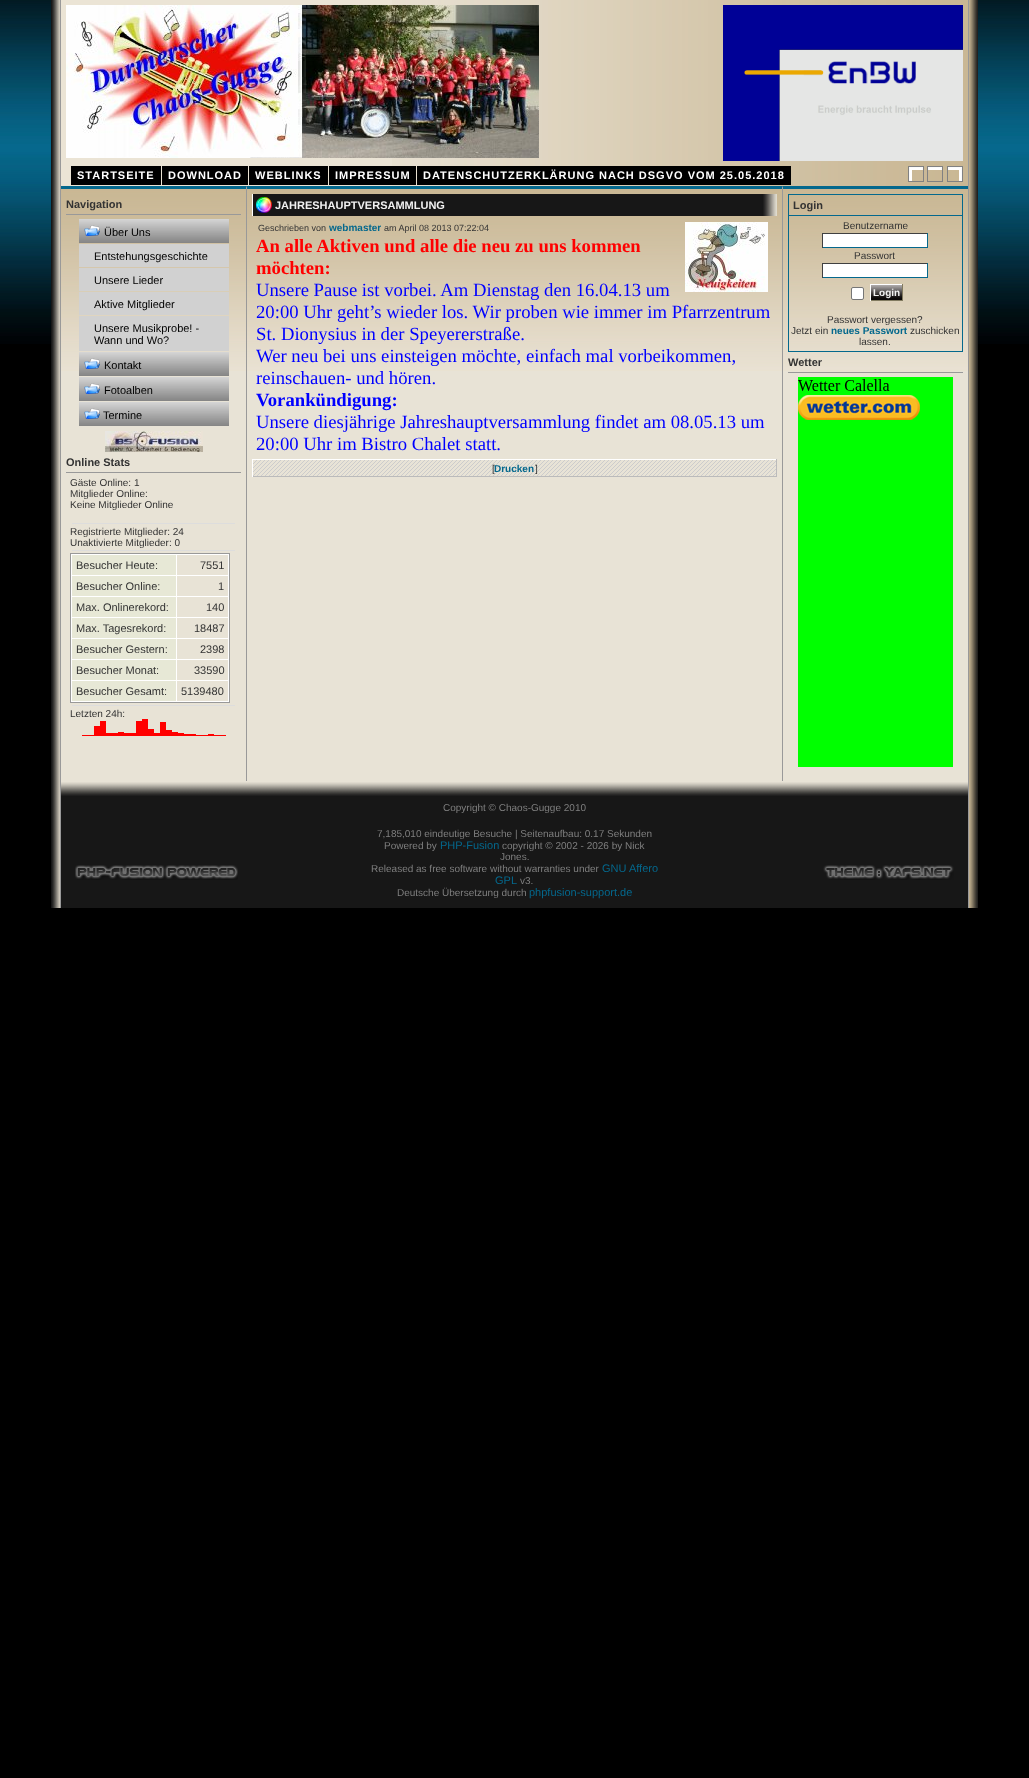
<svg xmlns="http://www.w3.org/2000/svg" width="1029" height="1778">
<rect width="100%" height="100%" fill="#000"/>
<image x="0" y="0" width="1029" height="344" href="media/1.png"/>
<image x="51" y="0" width="10" height="908" href="media/2.png"/>
<rect x="61" width="331" height="186" fill="#ebe4d5"/>
<image x="392" y="0" width="576" height="166" href="media/3.png"/>
<image x="66" y="5" width="473" height="153" href="media/4.png"/>
<image x="723" y="5" width="240" height="156" href="media/5.png"/>
<image x="392" y="166" width="576" height="20" href="media/6.png"/>
<rect x="71" y="166" width="90" height="19" fill="#000"/>
<text x="77" y="179" style="font-family:Liberation Sans;font-size:11px;font-weight:bold;letter-spacing:1px;fill:#fff">STARTSEITE</text>
<rect x="162" y="166" width="86" height="19" fill="#000"/>
<text x="168" y="179" style="font-family:Liberation Sans;font-size:11px;font-weight:bold;letter-spacing:1px;fill:#fff">DOWNLOAD</text>
<rect x="249" y="166" width="79" height="19" fill="#000"/>
<text x="255" y="179" style="font-family:Liberation Sans;font-size:11px;font-weight:bold;letter-spacing:1px;fill:#fff">WEBLINKS</text>
<rect x="329" y="166" width="87" height="19" fill="#000"/>
<text x="335" y="179" style="font-family:Liberation Sans;font-size:11px;font-weight:bold;letter-spacing:1px;fill:#fff">IMPRESSUM</text>
<rect x="417" y="166" width="374" height="19" fill="#000"/>
<text x="423" y="179" style="font-family:Liberation Sans;font-size:11px;font-weight:bold;letter-spacing:1px;fill:#fff">DATENSCHUTZERKLÄRUNG NACH DSGVO VOM 25.05.2018</text>
<image x="908" y="166" width="16" height="16" href="media/7.png"/>
<image x="927" y="166" width="16" height="16" href="media/8.png"/>
<image x="947" y="166" width="16" height="16" href="media/9.png"/>
<rect x="61" y="186" width="186" height="595" fill="#e8e3d6"/>
<image x="61" y="189" width="185" height="182" href="media/10.png"/>
<path d="M61 186h186l-1 3h-185z" fill="#04688d"/>
<path d="M247 186v595h-1v-592z" fill="#999"/>
<rect x="66" y="214" width="175" height="1" fill="#999"/>
<text x="66" y="208" style="font-family:Liberation Sans;font-size:11px;font-weight:bold;fill:#333">Navigation</text>
<image x="79" y="219" width="150" height="24" href="media/11.png"/>
<image x="84" y="225" width="16" height="11" href="media/12.png"/>
<text x="104" y="236" style="font-family:Liberation Sans;font-size:11px;fill:#000">Über Uns</text>
<rect x="79" y="244" width="150" height="23" fill="#d1d1d1"/>
<text x="94" y="260" style="font-family:Liberation Sans;font-size:11px;fill:#000">Entstehungsgeschichte</text>
<rect x="79" y="268" width="150" height="23" fill="#d1d1d1"/>
<text x="94" y="284" style="font-family:Liberation Sans;font-size:11px;fill:#000">Unsere Lieder</text>
<rect x="79" y="292" width="150" height="23" fill="#d1d1d1"/>
<text x="94" y="308" style="font-family:Liberation Sans;font-size:11px;fill:#000">Aktive Mitglieder</text>
<rect x="79" y="316" width="150" height="35" fill="#d1d1d1"/>
<text x="94" y="332" style="font-family:Liberation Sans;font-size:11px;fill:#000">Unsere Musikprobe! -</text>
<text x="94" y="344" style="font-family:Liberation Sans;font-size:11px;fill:#000">Wann und Wo?</text>
<image x="79" y="352" width="150" height="24" href="media/11.png"/>
<image x="84" y="358" width="16" height="11" href="media/12.png"/>
<text x="104" y="369" style="font-family:Liberation Sans;font-size:11px;fill:#000">Kontakt</text>
<image x="79" y="377" width="150" height="24" href="media/11.png"/>
<image x="84" y="383" width="16" height="11" href="media/12.png"/>
<text x="104" y="394" style="font-family:Liberation Sans;font-size:11px;fill:#000">Fotoalben</text>
<image x="79" y="402" width="150" height="24" href="media/11.png"/>
<image x="84" y="408" width="16" height="11" href="media/12.png"/>
<text x="103" y="419" style="font-family:Liberation Sans;font-size:11px;fill:#000">Termine</text>
<image x="105" y="431" width="98" height="21" href="media/13.png"/>
<rect x="66" y="472" width="175" height="1" fill="#999"/>
<text x="66" y="466" style="font-family:Liberation Sans;font-size:11px;font-weight:bold;fill:#333">Online Stats</text>
<text x="70" y="486" style="font-family:Liberation Sans;font-size:10px;fill:#333">Gäste Online: 1</text>
<text x="70" y="497" style="font-family:Liberation Sans;font-size:10px;fill:#333">Mitglieder Online:</text>
<text x="70" y="508" style="font-family:Liberation Sans;font-size:10px;fill:#333">Keine Mitglieder Online</text>
<rect x="72" y="523" width="163" height="1" fill="#ddd"/>
<text x="70" y="535" style="font-family:Liberation Sans;font-size:10px;fill:#333">Registrierte Mitglieder: 24</text>
<text x="70" y="546" style="font-family:Liberation Sans;font-size:10px;fill:#333">Unaktivierte Mitglieder: 0</text>
<rect x="72" y="550" width="163" height="1" fill="#ddd"/>
<rect x="70.5" y="553.5" width="159" height="149" fill="#fff" stroke="#999"/>
<rect x="72" y="555" width="104" height="20" fill="#e7e8d6"/>
<text x="76" y="569" style="font-family:Liberation Sans;font-size:11px;fill:#333">Besucher Heute:</text>
<rect x="177" y="555" width="51" height="20" fill="#e8e3d6"/>
<text x="200" y="569" style="font-family:Liberation Sans;font-size:11px;fill:#333">7551</text>
<rect x="72" y="576" width="104" height="20" fill="#e7e8d6"/>
<text x="76" y="590" style="font-family:Liberation Sans;font-size:11px;fill:#333">Besucher Online:</text>
<rect x="177" y="576" width="51" height="20" fill="#e8e3d6"/>
<text x="218" y="590" style="font-family:Liberation Sans;font-size:11px;fill:#333">1</text>
<rect x="72" y="597" width="104" height="20" fill="#e7e8d6"/>
<text x="76" y="611" style="font-family:Liberation Sans;font-size:11px;fill:#333">Max. Onlinerekord:</text>
<rect x="177" y="597" width="51" height="20" fill="#e8e3d6"/>
<text x="206" y="611" style="font-family:Liberation Sans;font-size:11px;fill:#333">140</text>
<rect x="72" y="618" width="104" height="20" fill="#e7e8d6"/>
<text x="76" y="632" style="font-family:Liberation Sans;font-size:11px;fill:#333">Max. Tagesrekord:</text>
<rect x="177" y="618" width="51" height="20" fill="#e8e3d6"/>
<text x="194" y="632" style="font-family:Liberation Sans;font-size:11px;fill:#333">18487</text>
<rect x="72" y="639" width="104" height="20" fill="#e7e8d6"/>
<text x="76" y="653" style="font-family:Liberation Sans;font-size:11px;fill:#333">Besucher Gestern:</text>
<rect x="177" y="639" width="51" height="20" fill="#e8e3d6"/>
<text x="200" y="653" style="font-family:Liberation Sans;font-size:11px;fill:#333">2398</text>
<rect x="72" y="660" width="104" height="20" fill="#e7e8d6"/>
<text x="76" y="674" style="font-family:Liberation Sans;font-size:11px;fill:#333">Besucher Monat:</text>
<rect x="177" y="660" width="51" height="20" fill="#e8e3d6"/>
<text x="194" y="674" style="font-family:Liberation Sans;font-size:11px;fill:#333">33590</text>
<rect x="72" y="681" width="104" height="20" fill="#e7e8d6"/>
<text x="76" y="695" style="font-family:Liberation Sans;font-size:11px;fill:#333">Besucher Gesamt:</text>
<rect x="177" y="681" width="51" height="20" fill="#e8e3d6"/>
<text x="181" y="695" style="font-family:Liberation Sans;font-size:11px;fill:#333">5139480</text>
<rect x="72" y="705" width="163" height="1" fill="#ddd"/>
<text x="70" y="717" style="font-family:Liberation Sans;font-size:10px;fill:#333">Letzten 24h:</text>
<rect x="82" y="735" width="12" height="1" fill="#f00"/>
<rect x="94" y="726" width="6" height="10" fill="#f00"/>
<rect x="100" y="721" width="6" height="15" fill="#f00"/>
<rect x="106" y="733" width="12" height="3" fill="#f00"/>
<rect x="118" y="732" width="6" height="4" fill="#f00"/>
<rect x="124" y="733" width="12" height="3" fill="#f00"/>
<rect x="136" y="721" width="6" height="15" fill="#f00"/>
<rect x="142" y="719" width="6" height="17" fill="#f00"/>
<rect x="148" y="729" width="6" height="7" fill="#f00"/>
<rect x="154" y="733" width="6" height="3" fill="#f00"/>
<rect x="160" y="722" width="6" height="14" fill="#f00"/>
<rect x="166" y="730" width="6" height="6" fill="#f00"/>
<rect x="172" y="732" width="6" height="4" fill="#f00"/>
<rect x="178" y="733" width="6" height="3" fill="#f00"/>
<rect x="184" y="734" width="12" height="2" fill="#f00"/>
<rect x="196" y="735" width="12" height="1" fill="#f00"/>
<rect x="208" y="734" width="6" height="2" fill="#f00"/>
<rect x="214" y="735" width="12" height="1" fill="#f00"/>
<rect x="247" y="371" width="535" height="410" fill="#e8e3d6"/>
<image x="247" y="189" width="535" height="182" href="media/14.png"/>
<rect x="247" y="186" width="535" height="3" fill="#04688d"/>
<rect x="253" y="194" width="510" height="22" fill="#171717"/>
<image x="256" y="197" width="16" height="16" href="media/15.png"/>
<rect x="252" y="194" width="1" height="22" fill="#fff"/>
<text x="275" y="209" style="font-family:Liberation Sans;font-size:11px;font-weight:bold;fill:#f1f1f1">JAHRESHAUPTVERSAMMLUNG</text>
<image x="763" y="194" width="14" height="22" href="media/16.png"/>
<text x="258" y="231" style="font-family:Liberation Sans;font-size:9px;fill:#333">Geschrieben von</text>
<text x="329" y="231" style="font-family:Liberation Sans;font-size:10px;font-weight:bold;fill:#04688d">webmaster</text>
<text x="384" y="231" style="font-family:Liberation Sans;font-size:9px;fill:#333">am April 08 2013 07:22:04</text>
<image x="685" y="222" width="83" height="70" href="media/17.png"/>
<text x="256" y="252" style="font-family:Liberation Serif;font-size:18.7px;font-weight:bold;fill:#f00">An alle Aktiven und alle die neu zu uns kommen</text>
<text x="256" y="274" style="font-family:Liberation Serif;font-size:18.7px;font-weight:bold;fill:#f00">möchten:</text>
<text x="256" y="296" style="font-family:Liberation Serif;font-size:18.7px;fill:#00f">Unsere Pause ist vorbei. Am Dienstag den 16.04.13 um</text>
<text x="256" y="318" style="font-family:Liberation Serif;font-size:18.7px;fill:#00f">20:00 Uhr geht’s wieder los. Wir proben wie immer im Pfarrzentrum</text>
<text x="256" y="340" style="font-family:Liberation Serif;font-size:18.7px;fill:#00f">St. Dionysius in der Speyererstraße.</text>
<text x="256" y="362" style="font-family:Liberation Serif;font-size:18.7px;fill:#00f">Wer neu bei uns einsteigen möchte, einfach mal vorbeikommen,</text>
<text x="256" y="384" style="font-family:Liberation Serif;font-size:18.7px;fill:#00f">reinschauen- und hören.</text>
<text x="256" y="406" style="font-family:Liberation Serif;font-size:18.7px;font-weight:bold;fill:#00f">Vorankündigung:</text>
<text x="256" y="428" style="font-family:Liberation Serif;font-size:18.7px;fill:#00f">Unsere diesjährige Jahreshauptversammlung findet am 08.05.13 um</text>
<text x="256" y="450" style="font-family:Liberation Serif;font-size:18.7px;fill:#00f">20:00 Uhr im Bistro Chalet statt.</text>
<image x="253" y="460" width="523" height="16" href="media/18.png"/>
<rect x="252" y="459" width="525" height="1" fill="#fff"/>
<rect x="776" y="459" width="1" height="18" fill="#bbb"/>
<rect x="252" y="476" width="525" height="1" fill="#bbb"/>
<rect x="252" y="459" width="1" height="18" fill="#fff"/>
<text x="492" y="472" style="font-family:Liberation Sans;font-size:10px;fill:#333">[</text>
<text x="494" y="472" style="font-family:Liberation Sans;font-size:10px;font-weight:bold;fill:#04688d">Drucken</text>
<text x="535" y="472" style="font-family:Liberation Sans;font-size:10px;fill:#333">]</text>
<rect x="782" y="186" width="186" height="595" fill="#e8e3d6"/>
<image x="783" y="189" width="185" height="182" href="media/10.png"/>
<path d="M782 186h186v3h-185z" fill="#04688d"/>
<path d="M782 781v-595l1 3v592z" fill="#999"/>
<rect x="788.5" y="194.5" width="174" height="21" fill="none" stroke="#04688d"/>
<text x="793" y="209" style="font-family:Liberation Sans;font-size:11px;font-weight:bold;fill:#333">Login</text>
<rect x="962" y="216" width="1" height="136" fill="#04688d"/>
<rect x="788" y="351" width="175" height="1" fill="#04688d"/>
<rect x="788" y="216" width="1" height="136" fill="#04688d"/>
<text x="843" y="229" style="font-family:Liberation Sans;font-size:10px;fill:#333">Benutzername</text>
<rect x="823" y="234" width="104" height="13" fill="#fff"/>
<rect x="822" y="233" width="106" height="1" fill="#404040"/>
<rect x="927" y="233" width="1" height="15" fill="#04688d"/>
<rect x="822" y="247" width="106" height="1" fill="#04688d"/>
<rect x="822" y="233" width="1" height="15" fill="#404040"/>
<text x="854" y="259" style="font-family:Liberation Sans;font-size:10px;fill:#333">Passwort</text>
<rect x="823" y="264" width="104" height="13" fill="#fff"/>
<rect x="822" y="263" width="106" height="1" fill="#404040"/>
<rect x="927" y="263" width="1" height="15" fill="#04688d"/>
<rect x="822" y="277" width="106" height="1" fill="#04688d"/>
<rect x="822" y="263" width="1" height="15" fill="#404040"/>
<rect x="851.5" y="287.5" width="12" height="12" rx="1.5" fill="#fff" stroke="#767676"/>
<rect x="871" y="298" width="31" height="2" fill="#0b0808"/>
<image x="871" y="285" width="31" height="13" href="media/19.png"/>
<rect x="870" y="284" width="33" height="1" fill="#fff"/>
<rect x="902" y="284" width="1" height="17" fill="#827b60"/>
<rect x="870" y="300" width="33" height="1" fill="#827b60"/>
<rect x="870" y="284" width="1" height="17" fill="#fff"/>
<text x="873" y="296" style="font-family:Liberation Sans;font-size:10px;font-weight:bold;fill:#f1f1f1">Login</text>
<text x="827" y="323" style="font-family:Liberation Sans;font-size:10px;fill:#333">Passwort vergessen?</text>
<text x="791" y="334" style="font-family:Liberation Sans;font-size:10px;fill:#333">Jetzt ein</text>
<text x="831" y="334" style="font-family:Liberation Sans;font-size:10px;font-weight:bold;fill:#04688d">neues Passwort</text>
<text x="910" y="334" style="font-family:Liberation Sans;font-size:10px;fill:#333">zuschicken</text>
<text x="859" y="345" style="font-family:Liberation Sans;font-size:10px;fill:#333">lassen.</text>
<rect x="788" y="372" width="175" height="1" fill="#999"/>
<text x="788" y="366" style="font-family:Liberation Sans;font-size:11px;font-weight:bold;fill:#333">Wetter</text>
<image x="798" y="377" width="155" height="390" href="media/20.png"/>
<image x="61" y="781" width="907" height="16" href="media/21.png"/>
<rect x="61" y="797" width="907" height="111" fill="#171717"/>
<text x="443" y="811" style="font-family:Liberation Sans;font-size:10px;fill:#7f7f7f">Copyright © Chaos-Gugge 2010</text>
<image x="75" y="865" width="163" height="15" href="media/22.png"/>
<text x="377" y="837" style="font-family:Liberation Sans;font-size:10px;fill:#7f7f7f">7,185,010 eindeutige Besuche | Seitenaufbau: 0.17 Sekunden</text>
<text x="384" y="849" style="font-family:Liberation Sans;font-size:10px;fill:#7f7f7f">Powered by</text>
<text x="440" y="849" style="font-family:Liberation Sans;font-size:11px;fill:#04688d">PHP-Fusion</text>
<text x="502" y="849" style="font-family:Liberation Sans;font-size:10px;fill:#7f7f7f">copyright © 2002 - 2026 by Nick</text>
<text x="500" y="860" style="font-family:Liberation Sans;font-size:10px;fill:#7f7f7f">Jones.</text>
<text x="371" y="872" style="font-family:Liberation Sans;font-size:10px;fill:#7f7f7f">Released as free software without warranties under</text>
<text x="602" y="872" style="font-family:Liberation Sans;font-size:11px;fill:#04688d">GNU Affero</text>
<text x="495" y="884" style="font-family:Liberation Sans;font-size:11px;fill:#04688d">GPL</text>
<text x="520" y="884" style="font-family:Liberation Sans;font-size:10px;fill:#7f7f7f">v3.</text>
<text x="397" y="896" style="font-family:Liberation Sans;font-size:10px;fill:#7f7f7f">Deutsche Übersetzung durch</text>
<text x="529" y="896" style="font-family:Liberation Sans;font-size:11px;fill:#04688d">phpfusion-support.de</text>
<image x="823" y="865" width="131" height="15" href="media/23.png"/>
<image x="968" y="0" width="10" height="908" href="media/24.png"/>
</svg>
